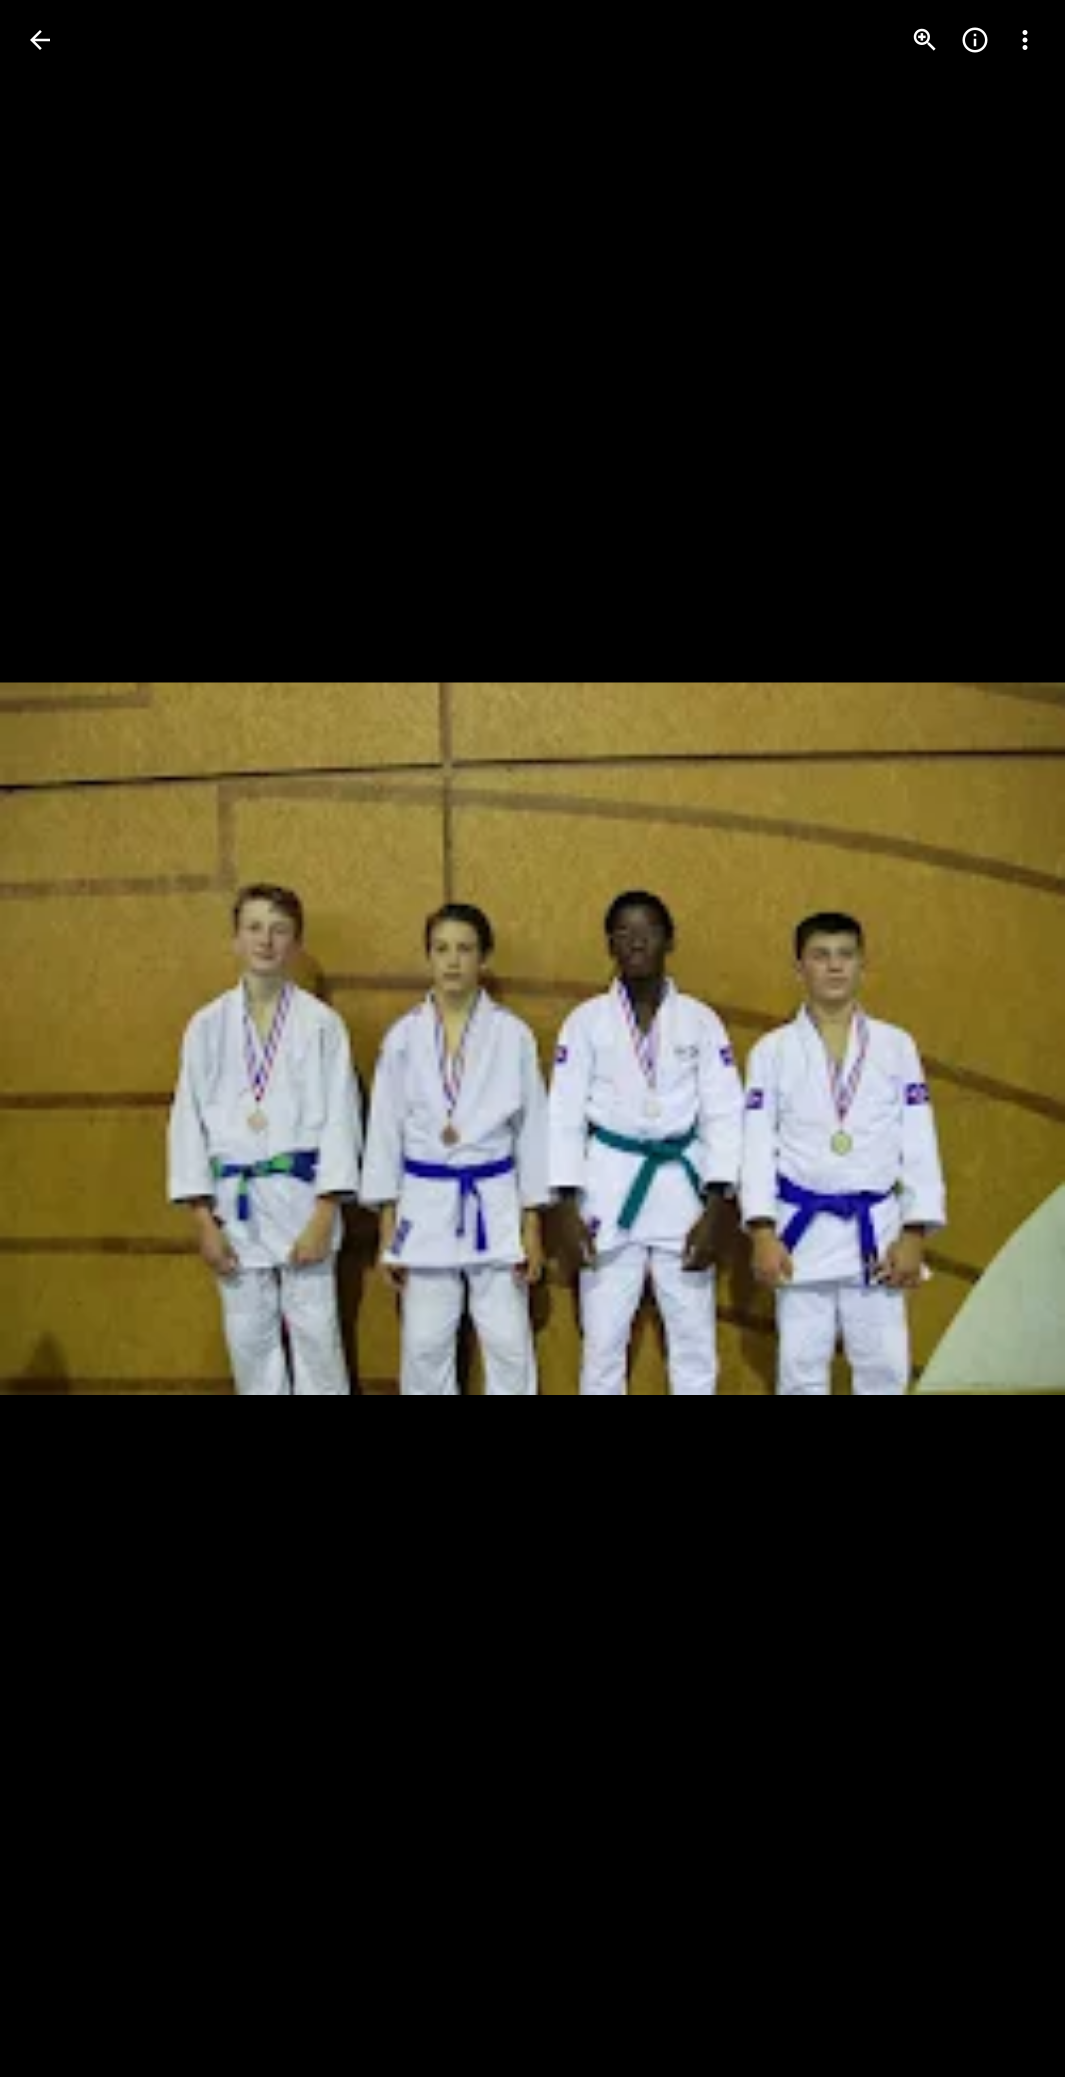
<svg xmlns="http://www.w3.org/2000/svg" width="1065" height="2077">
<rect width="100%" height="100%" fill="#000"/>
<image x="30" y="30" width="20" height="20" href="media/1.png"/>
<image x="913" y="28" width="23" height="23" href="media/2.png"/>
<image x="962" y="27" width="26" height="26" href="media/3.png"/>
<image x="1022" y="30" width="6" height="20" href="media/4.png"/>
<image x="0" y="682" width="1065" height="713" href="media/5.png"/>
</svg>
